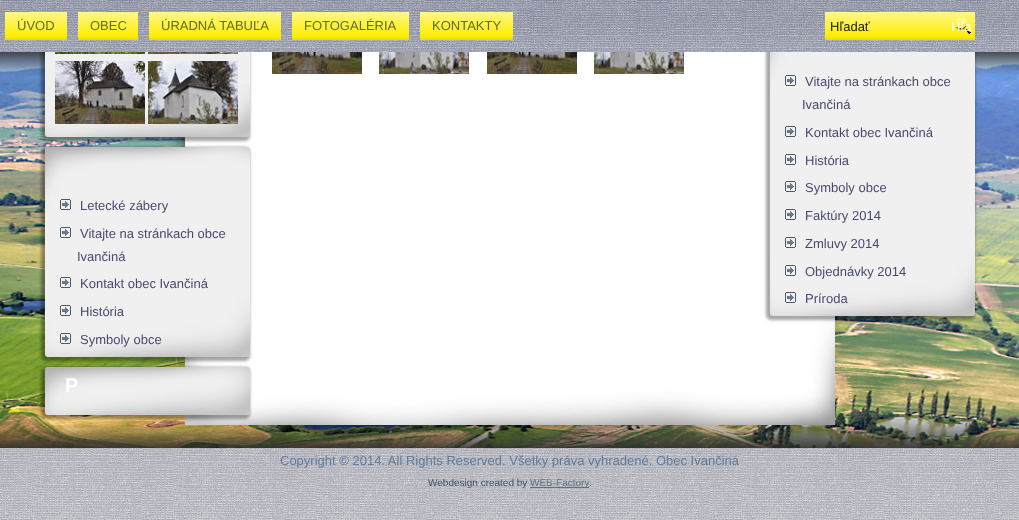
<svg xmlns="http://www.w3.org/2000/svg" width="1019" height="520">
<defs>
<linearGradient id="g1" gradientUnits="userSpaceOnUse" x1="36" y1="12" x2="36" y2="40"><stop offset="0" stop-color="#fef78a"/><stop offset="0.87" stop-color="#feed01"/><stop offset="1" stop-color="#e9da01"/></linearGradient>
<linearGradient id="g2" gradientUnits="userSpaceOnUse" x1="108" y1="12" x2="108" y2="40"><stop offset="0" stop-color="#fef78a"/><stop offset="0.87" stop-color="#feed01"/><stop offset="1" stop-color="#e9da01"/></linearGradient>
<linearGradient id="g3" gradientUnits="userSpaceOnUse" x1="215" y1="12" x2="215" y2="40"><stop offset="0" stop-color="#fef78a"/><stop offset="0.87" stop-color="#feed01"/><stop offset="1" stop-color="#e9da01"/></linearGradient>
<linearGradient id="g4" gradientUnits="userSpaceOnUse" x1="351" y1="12" x2="351" y2="40"><stop offset="0" stop-color="#fef78a"/><stop offset="0.87" stop-color="#feed01"/><stop offset="1" stop-color="#e9da01"/></linearGradient>
<linearGradient id="g5" gradientUnits="userSpaceOnUse" x1="467" y1="12" x2="467" y2="40"><stop offset="0" stop-color="#fef78a"/><stop offset="0.87" stop-color="#feed01"/><stop offset="1" stop-color="#e9da01"/></linearGradient>
<linearGradient id="g6" gradientUnits="userSpaceOnUse" x1="900" y1="12" x2="900" y2="40"><stop offset="0" stop-color="#fef78a"/><stop offset="0.87" stop-color="#feed01"/><stop offset="1" stop-color="#e9da01"/></linearGradient>
</defs>
<rect width="100%" height="100%" fill="#fff"/>
<image x="0" y="13" width="1019" height="507" href="media/1.png"/>
<image x="168" y="13" width="680" height="412" href="media/8.png"/>
<image x="272" y="20" width="90" height="54" href="media/9.png"/>
<image x="379" y="16" width="90" height="58" href="media/10.png"/>
<image x="487" y="13" width="90" height="61" href="media/11.png"/>
<image x="594" y="13" width="90" height="61" href="media/12.png"/>
<rect x="41" y="-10" width="209" height="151" rx="5" fill="#00000059" filter="blur(1.5px)"/>
<rect x="45" y="-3" width="205" height="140" rx="3" fill="#f0f0f0"/>
<image x="55" y="22" width="90" height="32" href="media/14.png"/>
<rect x="766" y="23" width="209" height="297" rx="5" fill="#00000059" filter="blur(1.5px)"/>
<rect x="770" y="23" width="205" height="293" rx="3" fill="#f0f0f0"/>
<image x="770" y="23" width="205" height="293" href="media/22.png"/>
<image x="0" y="0" width="1019" height="52" href="media/2.png"/>
<rect x="5" y="12" width="62" height="28" fill="url(#g1)"/>
<text x="17" y="30" style="font-family:Liberation Sans;font-size:13px;fill:#5f6e21">ÚVOD</text>
<image x="72" y="18" width="1" height="15" href="media/3.png"/>
<rect x="78" y="12" width="60" height="28" fill="url(#g2)"/>
<text x="90" y="30" style="font-family:Liberation Sans;font-size:13px;fill:#5f6e21">OBEC</text>
<image x="143" y="18" width="1" height="15" href="media/4.png"/>
<rect x="149" y="12" width="132" height="28" fill="url(#g3)"/>
<text x="161" y="30" style="font-family:Liberation Sans;font-size:13px;fill:#5f6e21">ÚRADNÁ TABUĽA</text>
<image x="286" y="18" width="1" height="15" href="media/5.png"/>
<rect x="292" y="12" width="117" height="28" fill="url(#g4)"/>
<text x="304" y="30" style="font-family:Liberation Sans;font-size:13px;fill:#5f6e21">FOTOGALÉRIA</text>
<image x="414" y="18" width="1" height="15" href="media/6.png"/>
<rect x="420" y="12" width="93" height="28" fill="url(#g5)"/>
<text x="432" y="30" style="font-family:Liberation Sans;font-size:13px;fill:#5f6e21">KONTAKTY</text>
<rect x="825" y="12" width="150" height="28" fill="url(#g6)"/>
<text x="830" y="31" style="font-family:Liberation Sans;font-size:13px;fill:#161a1d">Hľadať</text>
<image x="955" y="18" width="16" height="16" href="media/7.png"/>
<text x="951" y="31" style="font-family:Liberation Sans;font-size:13px;fill:#fff">Hľa</text>
<image x="45" y="84" width="205" height="53" href="media/13.png"/>
<image x="148" y="52" width="90" height="2" href="media/15.png"/>
<image x="55" y="61" width="90" height="63" href="media/16.png"/>
<image x="148" y="61" width="90" height="63" href="media/17.png"/>
<rect x="41" y="147" width="209" height="214" rx="5" fill="#00000059" filter="blur(1.5px)"/>
<rect x="45" y="147" width="205" height="210" rx="3" fill="#f0f0f0"/>
<image x="45" y="147" width="205" height="210" href="media/18.png"/>
<image x="60" y="199" width="11" height="11" href="media/19.png"/>
<text x="80" y="210" style="font-family:Liberation Sans;font-size:13px;fill:#494972">Letecké zábery</text>
<image x="60" y="227" width="11" height="11" href="media/19.png"/>
<text x="80" y="238" style="font-family:Liberation Sans;font-size:13px;fill:#494972">Vitajte na stránkach obce</text>
<text x="77" y="261" style="font-family:Liberation Sans;font-size:13px;fill:#494972">Ivančiná</text>
<image x="60" y="277" width="11" height="11" href="media/19.png"/>
<text x="80" y="288" style="font-family:Liberation Sans;font-size:13px;fill:#494972">Kontakt obec Ivančiná</text>
<image x="60" y="305" width="11" height="11" href="media/19.png"/>
<text x="80" y="316" style="font-family:Liberation Sans;font-size:13px;fill:#494972">História</text>
<image x="60" y="333" width="11" height="11" href="media/20.png"/>
<text x="80" y="344" style="font-family:Liberation Sans;font-size:13px;fill:#494972">Symboly obce</text>
<rect x="41" y="367" width="209" height="52" rx="5" fill="#00000059" filter="blur(1.5px)"/>
<rect x="45" y="367" width="205" height="48" rx="3" fill="#f0f0f0"/>
<image x="45" y="367" width="205" height="48" href="media/21.png"/>
<text x="65" y="392" style="font-family:Liberation Sans;font-size:20px;font-weight:bold;fill:#fff">P</text>
<image x="785" y="75" width="11" height="11" href="media/19.png"/>
<text x="805" y="86" style="font-family:Liberation Sans;font-size:13px;fill:#494972">Vitajte na stránkach obce</text>
<text x="802" y="109" style="font-family:Liberation Sans;font-size:13px;fill:#494972">Ivančiná</text>
<image x="785" y="126" width="11" height="11" href="media/19.png"/>
<text x="805" y="137" style="font-family:Liberation Sans;font-size:13px;fill:#494972">Kontakt obec Ivančiná</text>
<image x="785" y="154" width="11" height="11" href="media/19.png"/>
<text x="805" y="165" style="font-family:Liberation Sans;font-size:13px;fill:#494972">História</text>
<image x="785" y="181" width="11" height="11" href="media/19.png"/>
<text x="805" y="192" style="font-family:Liberation Sans;font-size:13px;fill:#494972">Symboly obce</text>
<image x="785" y="209" width="11" height="11" href="media/19.png"/>
<text x="805" y="220" style="font-family:Liberation Sans;font-size:13px;fill:#494972">Faktúry 2014</text>
<image x="785" y="237" width="11" height="11" href="media/19.png"/>
<text x="805" y="248" style="font-family:Liberation Sans;font-size:13px;fill:#494972">Zmluvy 2014</text>
<image x="785" y="265" width="11" height="11" href="media/19.png"/>
<text x="805" y="276" style="font-family:Liberation Sans;font-size:13px;fill:#494972">Objednávky 2014</text>
<image x="785" y="292" width="11" height="11" href="media/20.png"/>
<text x="805" y="303" style="font-family:Liberation Sans;font-size:13px;fill:#494972">Príroda</text>
<image x="198" y="425" width="588" height="16" href="media/23.png"/>
<text x="280" y="465" style="font-family:Liberation Sans;font-size:13px;fill:#5e7c9c">Copyright © 2014. All Rights Reserved. Všetky práva vyhradené. Obec Ivančiná</text>
<text x="428" y="486" style="font-family:Liberation Sans;font-size:10px;fill:#3f5369">Webdesign created by</text>
<rect x="530" y="487" width="59" height="1" fill="#5f7081"/>
<text x="530" y="486" style="font-family:Liberation Sans;font-size:10px;fill:#5f7081">WEB-Factory</text>
<text x="589" y="486" style="font-family:Liberation Sans;font-size:10px;fill:#3f5369">.</text>
</svg>
